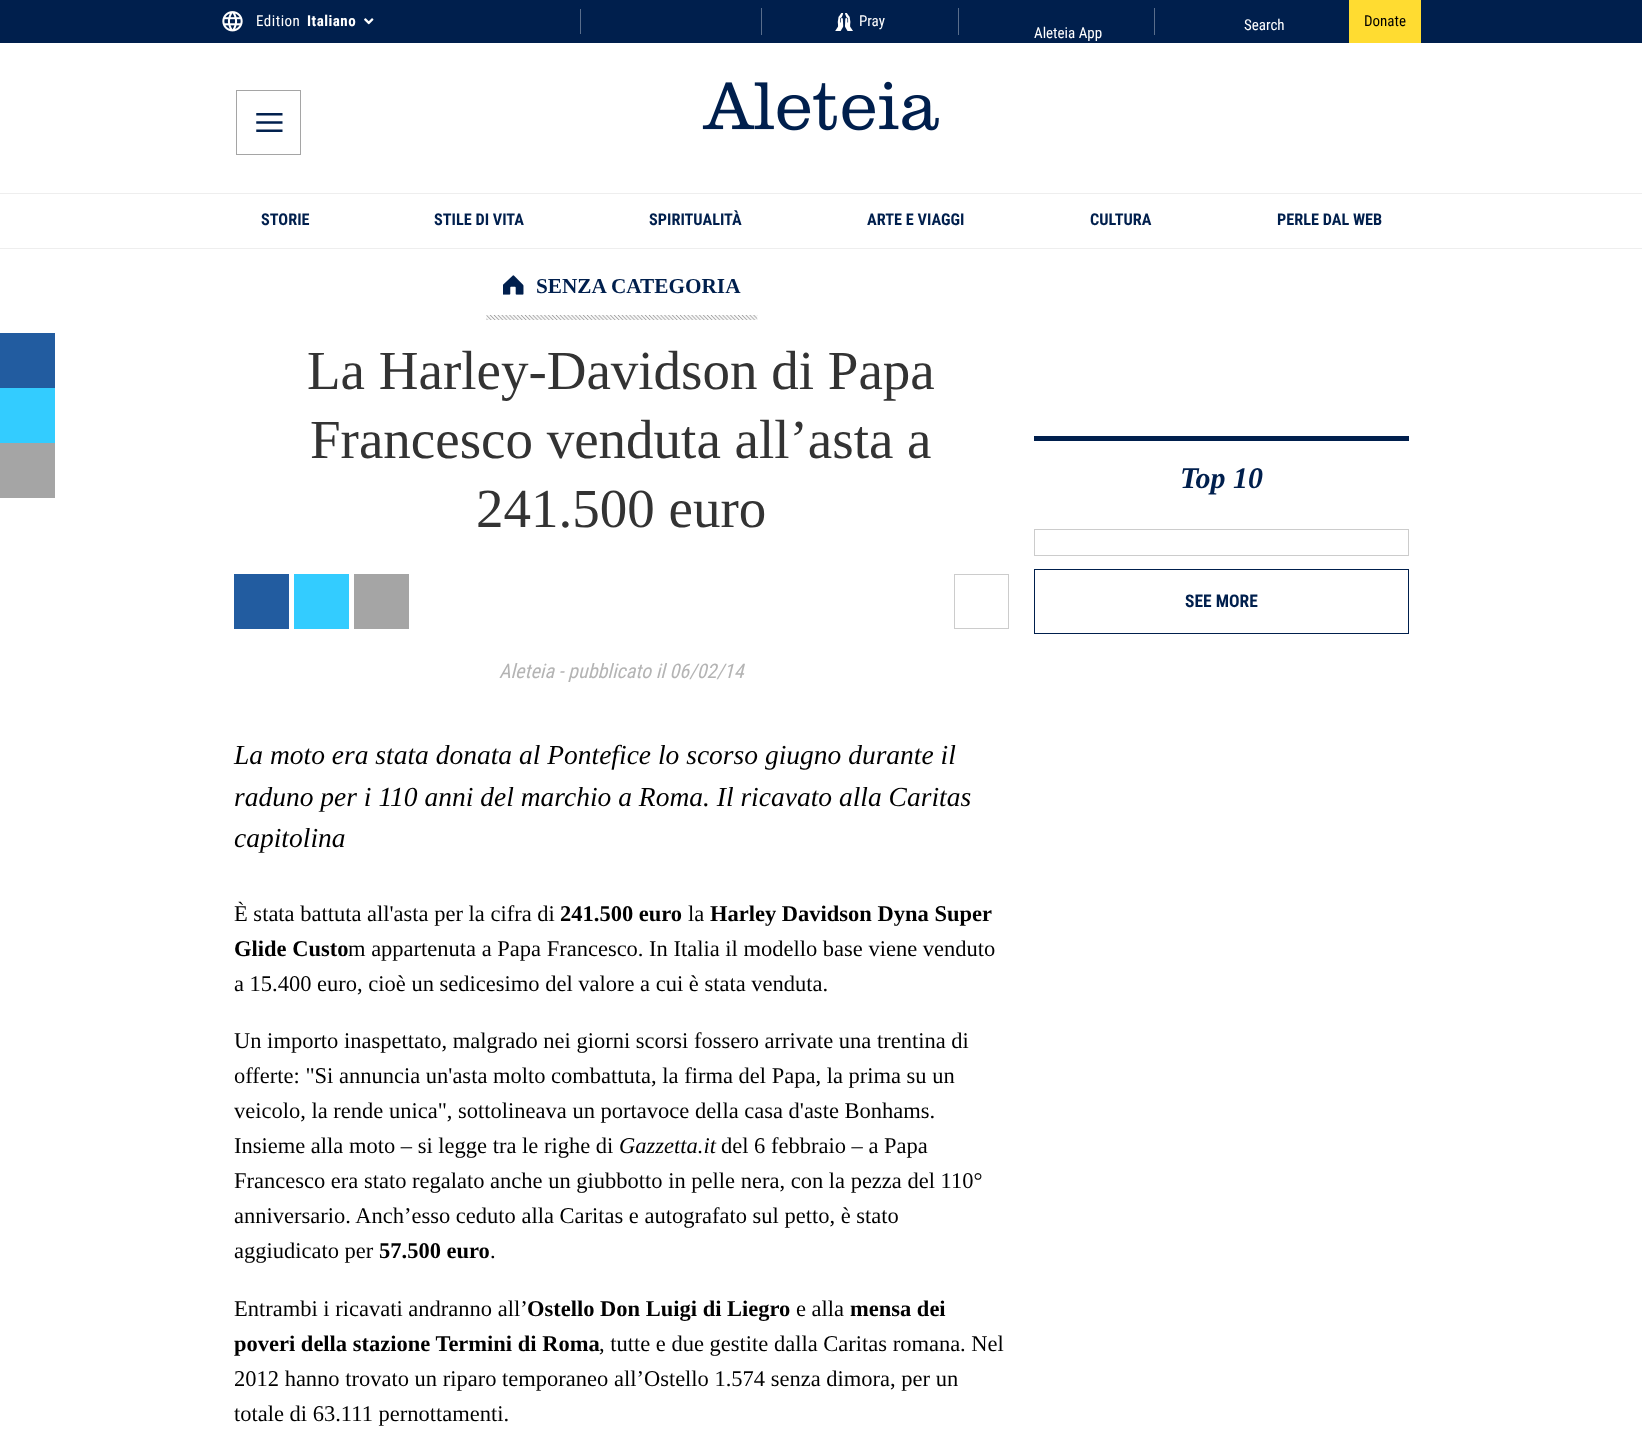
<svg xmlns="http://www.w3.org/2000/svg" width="1642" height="1446">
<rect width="100%" height="100%" fill="#fff"/>
<rect width="1642" height="43" fill="#001f4d"/>
<image x="222" y="11" width="21" height="21" href="media/1.png"/>
<text x="256" y="26" style="font-family:Roboto Condensed;font-size:15px;letter-spacing:0.5px;fill:#fff">Edition</text>
<text x="307" y="26" style="font-family:Roboto Condensed;font-size:15px;font-weight:bold;letter-spacing:0.5px;fill:#fff">Italiano</text>
<image x="364" y="18" width="10" height="7" href="media/2.png"/>
<rect x="580" y="9" width="1" height="25" fill="#596d8b"/>
<rect x="761" y="8" width="1" height="27" fill="#596d8b"/>
<image x="835" y="13" width="18" height="18" href="media/3.png"/>
<text x="859" y="26" style="font-family:Roboto Condensed;font-size:15px;fill:#fff">Pray</text>
<rect x="1154" y="8" width="1" height="27" fill="#596d8b"/>
<text x="1244" y="30" style="font-family:Roboto Condensed;font-size:15px;fill:#fff">Search</text>
<rect x="1349" width="72" height="43" fill="#ffdc31"/>
<text x="1364" y="26" style="font-family:Roboto Condensed;font-size:15px;fill:#000">Donate</text>
<rect x="958" y="8" width="1" height="27" fill="#596d8b"/>
<text x="1034" y="38" style="font-family:Roboto Condensed;font-size:15px;fill:#fff">Aleteia App</text>
<rect x="236.5" y="90.5" width="64" height="64" fill="none" stroke="#a5a5a5"/>
<image x="256" y="113" width="27" height="19" href="media/4.png"/>
<image x="702" y="81" width="237" height="50" href="media/5.png"/>
<rect y="193" width="1642" height="1" fill="#eee"/>
<rect y="248" width="1642" height="1" fill="#eee"/>
<text x="261" y="225" style="font-family:Roboto Condensed;font-size:16.25px;font-weight:bold;fill:#001f4d">STORIE</text>
<text x="434" y="225" style="font-family:Roboto Condensed;font-size:16.25px;font-weight:bold;fill:#001f4d">STILE DI VITA</text>
<text x="649" y="225" style="font-family:Roboto Condensed;font-size:16.25px;font-weight:bold;fill:#001f4d">SPIRITUALITÀ</text>
<text x="867" y="225" style="font-family:Roboto Condensed;font-size:16.25px;font-weight:bold;fill:#001f4d">ARTE E VIAGGI</text>
<text x="1090" y="225" style="font-family:Roboto Condensed;font-size:16.25px;font-weight:bold;fill:#001f4d">CULTURA</text>
<text x="1277" y="225" style="font-family:Roboto Condensed;font-size:16.25px;font-weight:bold;fill:#001f4d">PERLE DAL WEB</text>
<image x="503" y="275" width="21" height="20" href="media/6.png"/>
<text x="536" y="293" style="font-family:Liberation Serif;font-size:21.25px;font-weight:bold;fill:#001f4d">SENZA CATEGORIA</text>
<image x="486" y="315" width="272" height="5" href="media/7.png"/>
<rect y="333" width="55" height="55" fill="#225ca0"/>
<rect y="388" width="55" height="55" fill="#3cf"/>
<rect y="443" width="55" height="55" fill="#a5a5a5"/>
<text x="307" y="389" style="font-family:Liberation Serif;font-size:55px;fill:#333">La Harley-Davidson di Papa</text>
<text x="310" y="458" style="font-family:Liberation Serif;font-size:55px;fill:#333">Francesco venduta all’asta a</text>
<text x="476" y="527" style="font-family:Liberation Serif;font-size:55px;fill:#333">241.500 euro</text>
<rect x="234" y="574" width="55" height="55" fill="#225ca0"/>
<rect x="294" y="574" width="55" height="55" fill="#3cf"/>
<rect x="354" y="574" width="55" height="55" fill="#a5a5a5"/>
<rect x="954.5" y="574.5" width="54" height="54" fill="none" stroke="#ccc"/>
<text x="499" y="678" style="font-family:Roboto Condensed;font-size:20px;font-style:italic;fill:#b4b4b4">Aleteia - pubblicato il 06/02/14</text>
<text x="234" y="764" style="font-family:Liberation Serif;font-size:27.5px;font-style:italic;fill:#000">La moto era stata donata al Pontefice lo scorso giugno durante il</text>
<text x="234" y="806" style="font-family:Liberation Serif;font-size:27.5px;font-style:italic;fill:#000">raduno per i 110 anni del marchio a Roma. Il ricavato alla Caritas</text>
<text x="234" y="847" style="font-family:Liberation Serif;font-size:27.5px;font-style:italic;fill:#000">capitolina</text>
<text x="234" y="921" style="font-family:Liberation Serif;font-size:22.5px;fill:#000">È stata battuta all'asta per la cifra di</text>
<text x="560" y="921" style="font-family:Liberation Serif;font-size:22.5px;font-weight:bold;fill:#000">241.500 euro</text>
<text x="688" y="921" style="font-family:Liberation Serif;font-size:22.5px;fill:#000">la</text>
<text x="710" y="921" style="font-family:Liberation Serif;font-size:22.5px;font-weight:bold;fill:#000">Harley Davidson Dyna Super</text>
<text x="234" y="956" style="font-family:Liberation Serif;font-size:22.5px;font-weight:bold;fill:#000">Glide Custo</text>
<text x="348" y="956" style="font-family:Liberation Serif;font-size:22.5px;fill:#000">m appartenuta a Papa Francesco. In Italia il modello base viene venduto</text>
<text x="234" y="991" style="font-family:Liberation Serif;font-size:22.5px;fill:#000">a 15.400 euro, cioè un sedicesimo del valore a cui è stata venduta.</text>
<text x="234" y="1048" style="font-family:Liberation Serif;font-size:22.5px;fill:#000">Un importo inaspettato, malgrado nei giorni scorsi fossero arrivate una trentina di</text>
<text x="234" y="1083" style="font-family:Liberation Serif;font-size:22.5px;fill:#000">offerte: "Si annuncia un'asta molto combattuta, la firma del Papa, la prima su un</text>
<text x="234" y="1118" style="font-family:Liberation Serif;font-size:22.5px;fill:#000">veicolo, la rende unica", sottolineava un portavoce della casa d'aste Bonhams.</text>
<text x="234" y="1153" style="font-family:Liberation Serif;font-size:22.5px;fill:#000">Insieme alla moto – si legge tra le righe di</text>
<text x="619" y="1153" style="font-family:Liberation Serif;font-size:22.5px;font-style:italic;fill:#000">Gazzetta.it</text>
<text x="721" y="1153" style="font-family:Liberation Serif;font-size:22.5px;fill:#000">del 6 febbraio – a Papa</text>
<text x="234" y="1188" style="font-family:Liberation Serif;font-size:22.5px;fill:#000">Francesco era stato regalato anche un giubbotto in pelle nera, con la pezza del 110°</text>
<text x="234" y="1223" style="font-family:Liberation Serif;font-size:22.5px;fill:#000">anniversario. Anch’esso ceduto alla Caritas e autografato sul petto, è stato</text>
<text x="234" y="1258" style="font-family:Liberation Serif;font-size:22.5px;fill:#000">aggiudicato per</text>
<text x="379" y="1258" style="font-family:Liberation Serif;font-size:22.5px;font-weight:bold;fill:#000">57.500 euro</text>
<text x="490" y="1258" style="font-family:Liberation Serif;font-size:22.5px;fill:#000">.</text>
<text x="234" y="1316" style="font-family:Liberation Serif;font-size:22.5px;fill:#000">Entrambi i ricavati andranno all’</text>
<text x="527" y="1316" style="font-family:Liberation Serif;font-size:22.5px;font-weight:bold;fill:#000">Ostello Don Luigi di Liegro</text>
<text x="796" y="1316" style="font-family:Liberation Serif;font-size:22.5px;fill:#000">e alla</text>
<text x="850" y="1316" style="font-family:Liberation Serif;font-size:22.5px;font-weight:bold;fill:#000">mensa dei</text>
<text x="234" y="1351" style="font-family:Liberation Serif;font-size:22.5px;font-weight:bold;fill:#000">poveri della stazione Termini di Roma</text>
<text x="599" y="1351" style="font-family:Liberation Serif;font-size:22.5px;fill:#000">, tutte e due gestite dalla Caritas romana. Nel</text>
<text x="234" y="1386" style="font-family:Liberation Serif;font-size:22.5px;fill:#000">2012 hanno trovato un riparo temporaneo all’Ostello 1.574 senza dimora, per un</text>
<text x="234" y="1421" style="font-family:Liberation Serif;font-size:22.5px;fill:#000">totale di 63.111 pernottamenti.</text>
<rect x="1034" y="436" width="375" height="5" fill="#001f4d"/>
<text x="1180" y="488" style="font-family:Liberation Serif;font-size:30px;font-weight:bold;font-style:italic;fill:#001f4d">Top 10</text>
<rect x="1034.5" y="529.5" width="374" height="26" fill="none" stroke="#ccc"/>
<rect x="1034.5" y="569.5" width="374" height="64" fill="none" stroke="#001f4d"/>
<text x="1185" y="607" style="font-family:Roboto Condensed;font-size:17.5px;font-weight:bold;fill:#001f4d">SEE MORE</text>
</svg>
